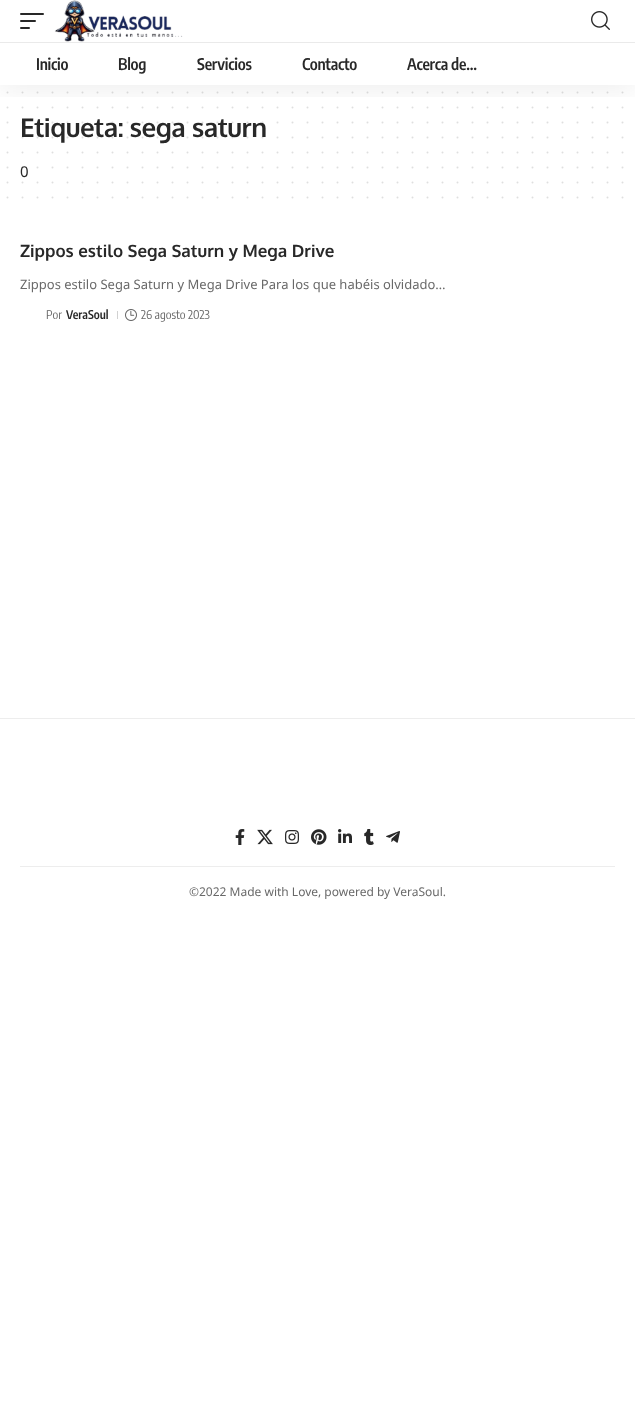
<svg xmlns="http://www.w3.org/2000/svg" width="635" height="1407">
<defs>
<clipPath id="clip1"><rect x="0" y="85" width="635" height="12"/></clipPath>
</defs>
<rect width="100%" height="100%" fill="#fff"/>
<path d="M7.5 92.5h615.2" fill="none" stroke="#dfdfdf" stroke-width="2" stroke-linecap="round" stroke-dasharray="0 15"/>
<path d="M7.5 107.5h615.2" fill="none" stroke="#dfdfdf" stroke-width="2" stroke-linecap="round" stroke-dasharray="0 15"/>
<text x="20" y="137" style="font-family:Oxygen;font-size:26px;font-weight:bold;letter-spacing:-0.5px;fill:#282828">Etiqueta: sega saturn</text>
<path d="M7.5 122.5h615.2" fill="none" stroke="#28282826" stroke-width="2" stroke-linecap="round" stroke-dasharray="0 15"/>
<g clip-path="url(#clip1)">
<rect y="4" width="635" height="85" fill="#00000012" filter="blur(15px)"/>
</g>
<rect x="20" y="13" width="24" height="2" rx="1" fill="#282828"/>
<rect x="20" y="20" width="16" height="2" rx="1" fill="#282828"/>
<rect x="20" y="27" width="10" height="2" rx="1" fill="#282828"/>
<image x="54" y="0" width="129" height="42" href="media/1.png"/>
<image x="591" y="11" width="19" height="19" href="media/2.png"/>
<rect y="42" width="635" height="1" fill="#eaeaea"/>
<text x="36" y="70" style="font-family:Encode Sans Condensed;font-size:16px;font-weight:600;letter-spacing:-0.25px;fill:#282828">Inicio</text>
<text x="118" y="70" style="font-family:Encode Sans Condensed;font-size:16px;font-weight:600;letter-spacing:-0.25px;fill:#282828">Blog</text>
<text x="197" y="70" style="font-family:Encode Sans Condensed;font-size:16px;font-weight:600;letter-spacing:-0.25px;fill:#282828">Servicios</text>
<text x="302" y="70" style="font-family:Encode Sans Condensed;font-size:16px;font-weight:600;letter-spacing:-0.25px;fill:#282828">Contacto</text>
<text x="407" y="70" style="font-family:Encode Sans Condensed;font-size:16px;font-weight:600;letter-spacing:-0.25px;fill:#282828">Acerca de…</text>
<path d="M7.5 137.5h615.2" fill="none" stroke="#28282826" stroke-width="2" stroke-linecap="round" stroke-dasharray="0 15"/>
<path d="M7.5 152.5h615.2" fill="none" stroke="#dfdfdf" stroke-width="2" stroke-linecap="round" stroke-dasharray="0 15"/>
<text x="20" y="177" style="font-family:Noto Sans;font-size:15px;fill:#282828">0</text>
<path d="M7.5 167.5h615.2" fill="none" stroke="#28282826" stroke-width="2" stroke-linecap="round" stroke-dasharray="0 15"/>
<path d="M7.5 182.5h615.2" fill="none" stroke="#dfdfdf" stroke-width="2" stroke-linecap="round" stroke-dasharray="0 15"/>
<path d="M7.5 197.5h615.2" fill="none" stroke="#dfdfdf" stroke-width="2" stroke-linecap="round" stroke-dasharray="0 15"/>
<text x="20" y="257" style="font-family:Oxygen;font-size:17px;font-weight:bold;fill:#282828">Zippos estilo Sega Saturn y Mega Drive</text>
<text x="20" y="289" style="font-family:Noto Sans;font-size:13px;fill:#696969">Zippos estilo Sega Saturn y Mega Drive Para los que habéis olvidado…</text>
<text x="46" y="319" style="font-family:Encode Sans Condensed;font-size:12px;fill:#696969">Por</text>
<text x="66" y="319" style="font-family:Encode Sans Condensed;font-size:12px;font-weight:600;fill:#282828">VeraSoul</text>
<rect x="117" y="311" width="1" height="8" fill="#d1d1d1"/>
<image x="125" y="309" width="12" height="12" href="media/3.png"/>
<text x="141" y="319" style="font-family:Encode Sans Condensed;font-size:12px;fill:#696969">26 agosto 2023</text>
<rect y="718" width="635" height="1" fill="#ededed"/>
<image x="235" y="829" width="10" height="16" href="media/4.png"/>
<image x="257" y="829" width="16" height="16" href="media/5.png"/>
<image x="285" y="830" width="14" height="14" href="media/6.png"/>
<image x="311" y="829" width="16" height="16" href="media/7.png"/>
<image x="338" y="829" width="14" height="14" href="media/8.png"/>
<image x="364" y="829" width="10" height="16" href="media/9.png"/>
<image x="386" y="831" width="14" height="12" href="media/10.png"/>
<rect x="20" y="866" width="595" height="1" fill="#ededed"/>
<text x="189" y="896" style="font-family:Noto Sans;font-size:12px;fill:#696969">©2022 Made with Love, powered by VeraSoul.</text>
</svg>
